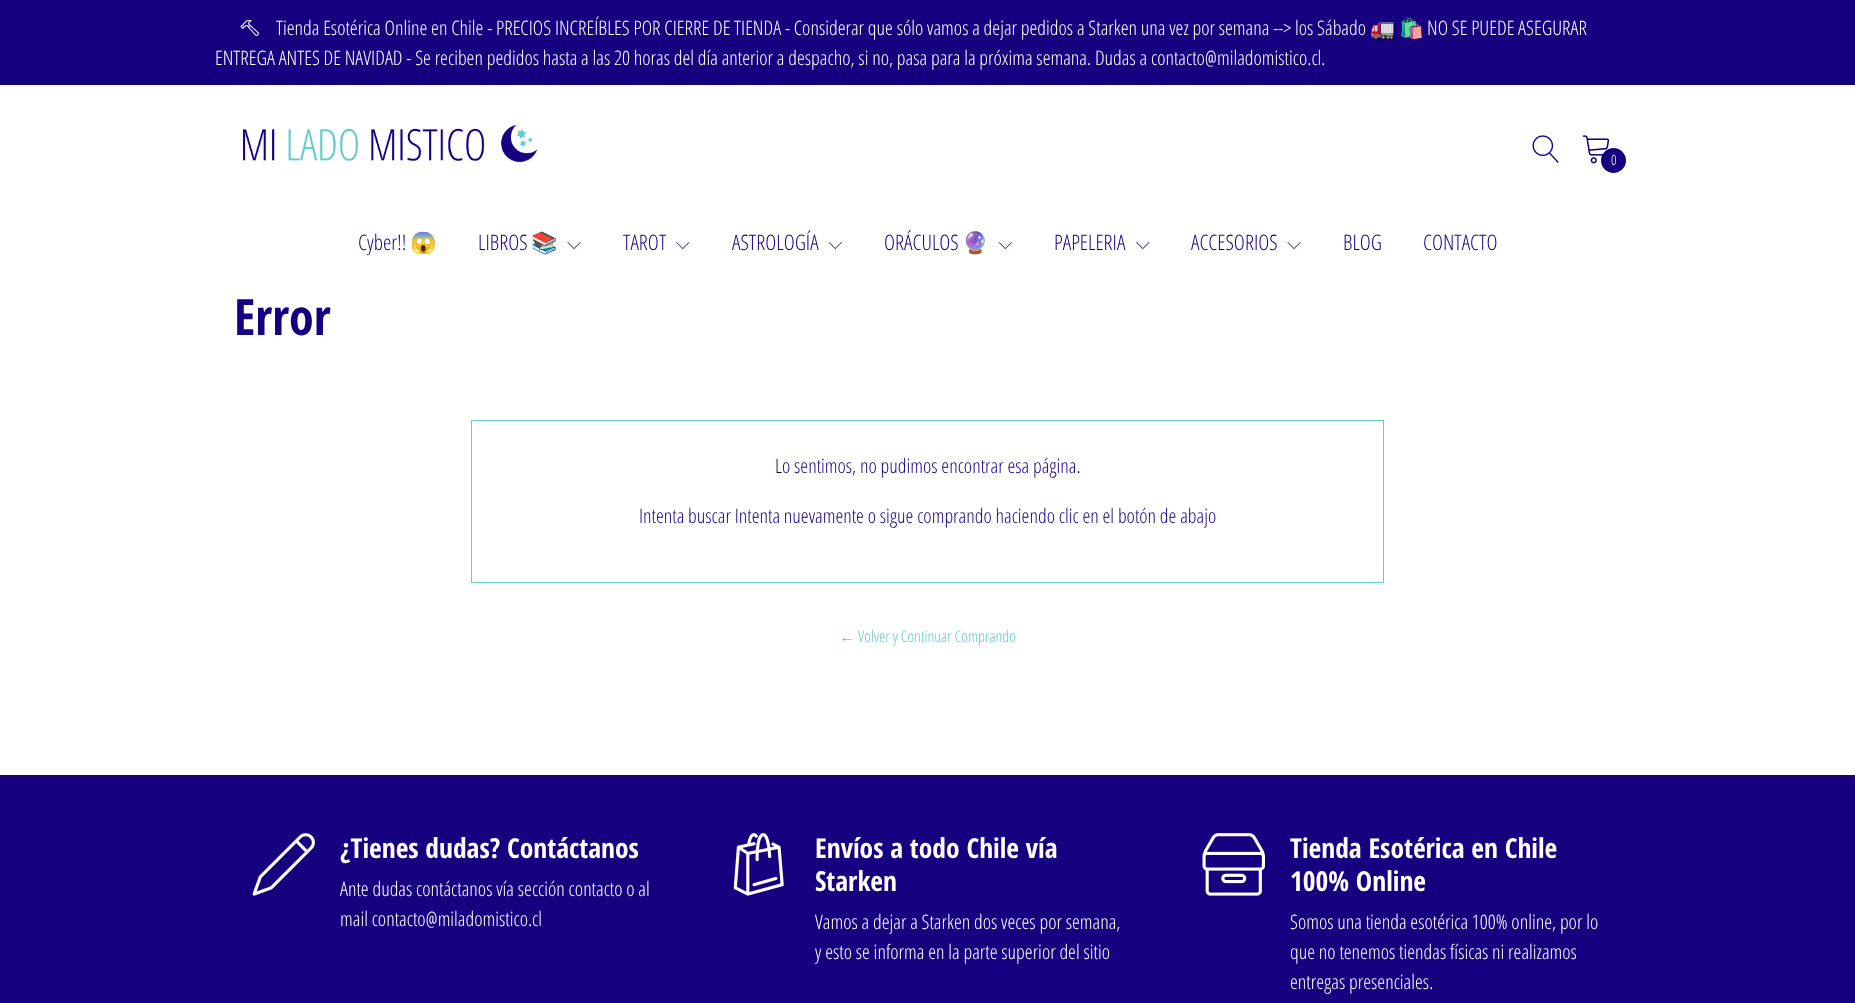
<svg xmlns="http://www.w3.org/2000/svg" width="1855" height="1003">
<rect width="100%" height="100%" fill="#fff"/>
<rect width="1855" height="85" fill="#170080"/>
<image x="240" y="20" width="20" height="17" href="media/1.png"/>
<text x="276" y="35" style="font-family:Open Sans Condensed;font-size:20px;font-weight:300;fill:#fff">Tienda Esotérica Online en Chile - PRECIOS INCREÍBLES POR CIERRE DE TIENDA - Considerar que sólo vamos a dejar pedidos a Starken una vez por semana --&gt; los Sábado</text>
<text x="1370" y="35" style="font-family:Noto Color Emoji;font-size:20px;fill:#fff">🚛</text>
<text x="1399" y="35" style="font-family:Noto Color Emoji;font-size:20px;fill:#fff">🛍️</text>
<text x="1427" y="35" style="font-family:Open Sans Condensed;font-size:20px;font-weight:300;fill:#fff">NO SE PUEDE ASEGURAR</text>
<text x="215" y="65" style="font-family:Open Sans Condensed;font-size:20px;font-weight:300;fill:#fff">ENTREGA ANTES DE NAVIDAD - Se reciben pedidos hasta a las 20 horas del día anterior a despacho, si no, pasa para la próxima semana. Dudas a contacto@miladomistico.cl.</text>
<image x="243" y="124" width="295" height="39" href="media/2.png"/>
<image x="1532" y="135" width="27" height="28" href="media/3.png"/>
<image x="1582" y="135" width="28" height="29" href="media/4.png"/>
<circle cx="1613.5" cy="160.5" r="12.5" fill="#170080"/>
<text x="1611" y="165" style="font-family:Open Sans Condensed;font-size:14px;font-weight:300;fill:#fff">0</text>
<text x="358" y="250" style="font-family:Open Sans Condensed;font-size:21.25px;font-weight:300;fill:#170080">Cyber!!</text>
<text x="410" y="250" style="font-family:Noto Color Emoji;font-size:21.25px;fill:#170080">😱</text>
<text x="478" y="250" style="font-family:Open Sans Condensed;font-size:21.25px;font-weight:300;fill:#170080">LIBROS</text>
<text x="531" y="250" style="font-family:Noto Color Emoji;font-size:21.25px;fill:#170080">📚</text>
<image x="567" y="242" width="14" height="7" href="media/5.png"/>
<text x="623" y="250" style="font-family:Open Sans Condensed;font-size:21.25px;font-weight:300;fill:#170080">TAROT</text>
<image x="676" y="242" width="14" height="7" href="media/6.png"/>
<text x="732" y="250" style="font-family:Open Sans Condensed;font-size:21.25px;font-weight:300;fill:#170080">ASTROLOGÍA</text>
<image x="828" y="242" width="14" height="7" href="media/7.png"/>
<text x="884" y="250" style="font-family:Open Sans Condensed;font-size:21.25px;font-weight:300;fill:#170080">ORÁCULOS</text>
<text x="962" y="250" style="font-family:Noto Color Emoji;font-size:21.25px;fill:#170080">🔮</text>
<image x="998" y="242" width="14" height="7" href="media/7.png"/>
<text x="1054" y="250" style="font-family:Open Sans Condensed;font-size:21.25px;font-weight:300;fill:#170080">PAPELERIA</text>
<image x="1136" y="242" width="14" height="7" href="media/6.png"/>
<text x="1191" y="250" style="font-family:Open Sans Condensed;font-size:21.25px;font-weight:300;fill:#170080">ACCESORIOS</text>
<image x="1287" y="242" width="14" height="7" href="media/5.png"/>
<text x="1343" y="250" style="font-family:Open Sans Condensed;font-size:21.25px;font-weight:300;fill:#170080">BLOG</text>
<text x="1423" y="250" style="font-family:Open Sans Condensed;font-size:21.25px;font-weight:300;fill:#170080">CONTACTO</text>
<text x="234" y="335" style="font-family:Open Sans Condensed;font-size:50px;font-weight:bold;fill:#170080">Error</text>
<rect x="471.5" y="420.5" width="912" height="162" fill="none" stroke="#61cbcd"/>
<text x="775" y="473" style="font-family:Open Sans Condensed;font-size:20px;font-weight:300;fill:#170080">Lo sentimos, no pudimos encontrar esa página.</text>
<text x="639" y="523" style="font-family:Open Sans Condensed;font-size:20px;font-weight:300;fill:#170080">Intenta buscar Intenta nuevamente o sigue comprando haciendo clic en el botón de abajo</text>
<text x="839" y="642" style="font-family:Liberation Serif;font-size:16px;fill:#61cbcd">←</text>
<text x="858" y="642" style="font-family:Open Sans Condensed;font-size:16px;font-weight:300;fill:#61cbcd">Volver y Continuar Comprando</text>
<rect y="775" width="1855" height="228" fill="#170080"/>
<image x="252" y="833" width="63" height="63" href="media/8.png"/>
<text x="340" y="858" style="font-family:Open Sans Condensed;font-size:27.5px;font-weight:bold;fill:#fff">¿Tienes dudas? Contáctanos</text>
<text x="340" y="896" style="font-family:Open Sans Condensed;font-size:20px;font-weight:300;fill:#fff">Ante dudas contáctanos vía sección contacto o al</text>
<text x="340" y="926" style="font-family:Open Sans Condensed;font-size:20px;font-weight:300;fill:#fff">mail contacto@miladomistico.cl</text>
<image x="733" y="833" width="51" height="63" href="media/9.png"/>
<text x="815" y="858" style="font-family:Open Sans Condensed;font-size:27.5px;font-weight:bold;fill:#fff">Envíos a todo Chile vía</text>
<text x="815" y="891" style="font-family:Open Sans Condensed;font-size:27.5px;font-weight:bold;fill:#fff">Starken</text>
<text x="815" y="929" style="font-family:Open Sans Condensed;font-size:20px;font-weight:300;fill:#fff">Vamos a dejar a Starken dos veces por semana,</text>
<text x="815" y="959" style="font-family:Open Sans Condensed;font-size:20px;font-weight:300;fill:#fff">y esto se informa en la parte superior del sitio</text>
<image x="1202" y="833" width="63" height="63" href="media/10.png"/>
<text x="1290" y="858" style="font-family:Open Sans Condensed;font-size:27.5px;font-weight:bold;fill:#fff">Tienda Esotérica en Chile</text>
<text x="1290" y="891" style="font-family:Open Sans Condensed;font-size:27.5px;font-weight:bold;fill:#fff">100% Online</text>
<text x="1290" y="929" style="font-family:Open Sans Condensed;font-size:20px;font-weight:300;fill:#fff">Somos una tienda esotérica 100% online, por lo</text>
<text x="1290" y="959" style="font-family:Open Sans Condensed;font-size:20px;font-weight:300;fill:#fff">que no tenemos tiendas físicas ni realizamos</text>
<text x="1290" y="989" style="font-family:Open Sans Condensed;font-size:20px;font-weight:300;fill:#fff">entregas presenciales.</text>
</svg>
